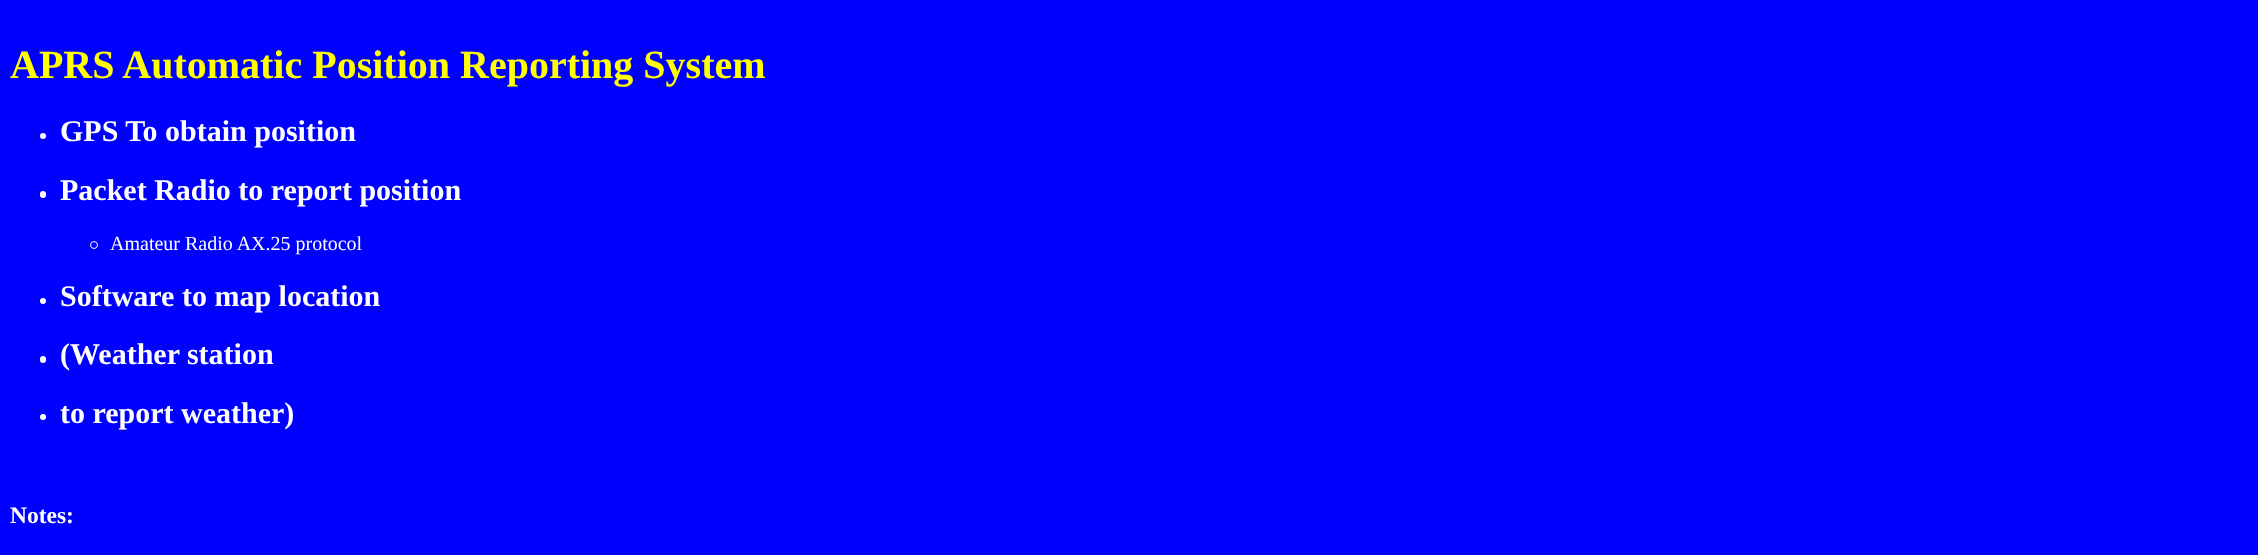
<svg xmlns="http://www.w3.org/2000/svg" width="2258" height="555">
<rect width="100%" height="100%" fill="#00f"/>
<text x="10" y="78" style="font-family:Liberation Serif;font-size:40px;font-weight:bold;fill:#ff0">APRS Automatic Position Reporting System</text>
<circle cx="43" cy="136" r="3" fill="#fff"/>
<text x="60" y="141" style="font-family:Liberation Serif;font-size:30px;font-weight:bold;fill:#fff">GPS To obtain position</text>
<rect x="40" y="191" width="6" height="7" rx="3" fill="#fff"/>
<text x="60" y="200" style="font-family:Liberation Serif;font-size:30px;font-weight:bold;fill:#fff">Packet Radio to report position</text>
<circle cx="94" cy="245" r="3.5" fill="none" stroke="#fff"/>
<text x="110" y="250" style="font-family:Liberation Serif;font-size:20px;fill:#fff">Amateur Radio AX.25 protocol</text>
<circle cx="43" cy="301" r="3" fill="#fff"/>
<text x="60" y="306" style="font-family:Liberation Serif;font-size:30px;font-weight:bold;fill:#fff">Software to map location</text>
<rect x="40" y="356" width="6" height="7" rx="3" fill="#fff"/>
<text x="60" y="364" style="font-family:Liberation Serif;font-size:30px;font-weight:bold;fill:#fff">(Weather station</text>
<circle cx="43" cy="417" r="3" fill="#fff"/>
<text x="60" y="423" style="font-family:Liberation Serif;font-size:30px;font-weight:bold;fill:#fff">to report weather)</text>
<text x="10" y="523" style="font-family:Liberation Serif;font-size:23.5px;font-weight:bold;fill:#fff">Notes:</text>
</svg>
